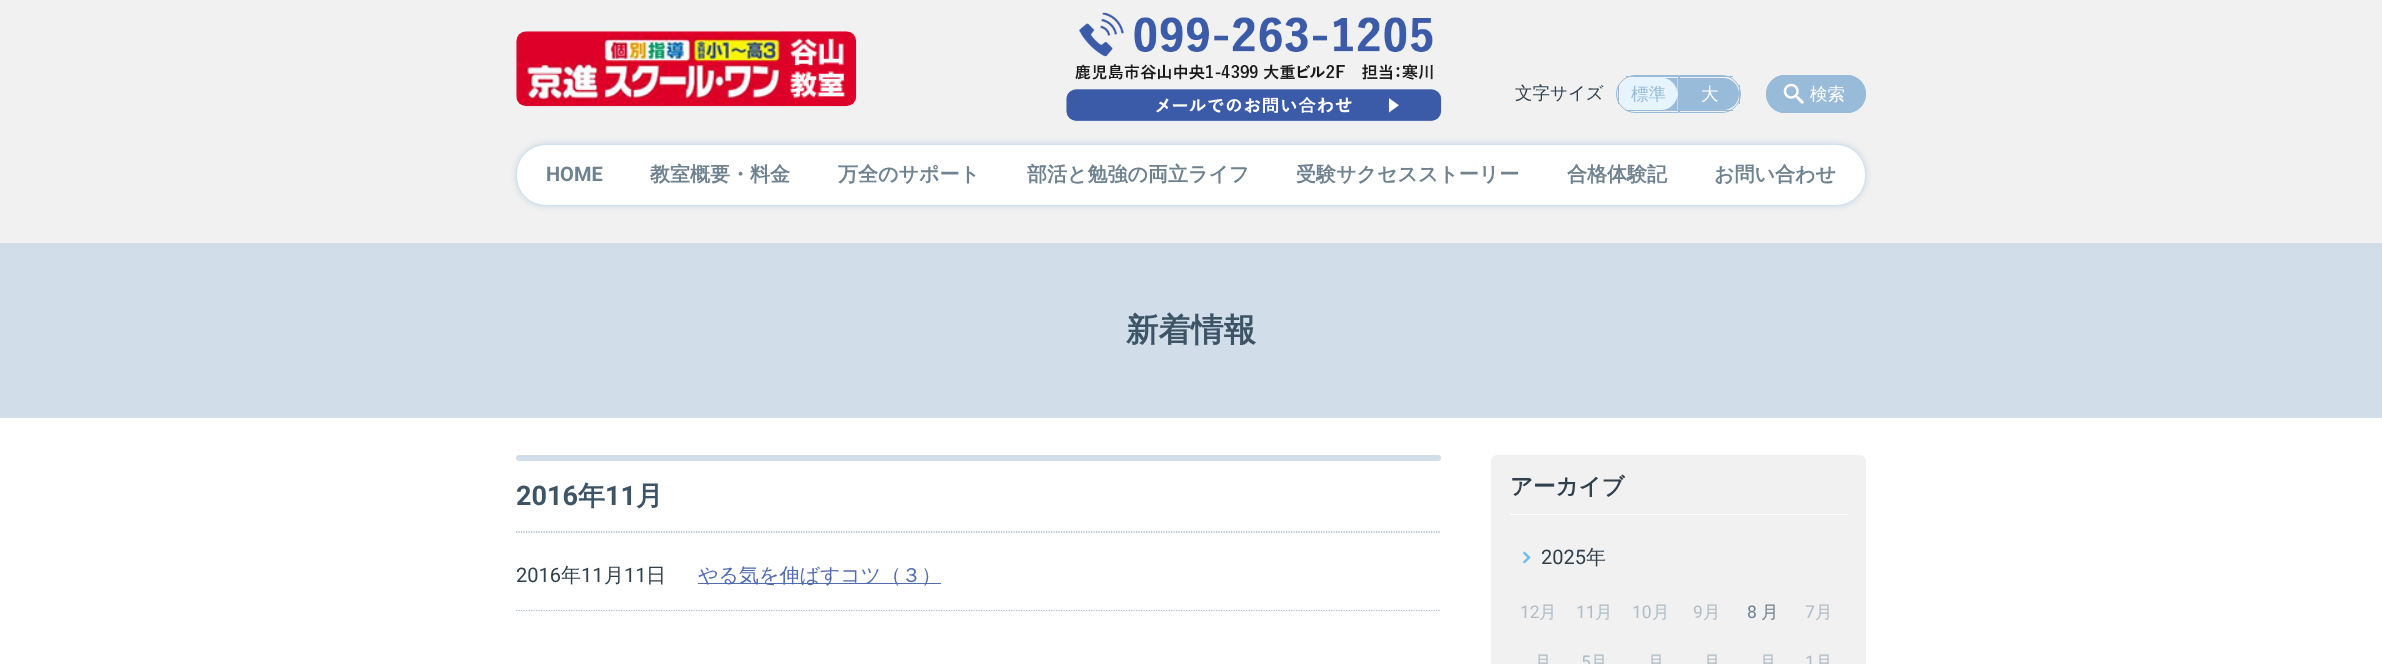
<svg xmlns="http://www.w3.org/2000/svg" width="2382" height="664">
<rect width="100%" height="100%" fill="#fff"/>
<rect width="2382" height="243" fill="#f1f1f1"/>
<image x="516" y="31" width="341" height="76" href="media/1.png"/>
<image x="1066" y="12" width="376" height="110" href="media/2.png"/>
<text x="1515" y="99" style="font-family:WenQuanYi Zen Hei;font-size:17.5px;font-weight:500;fill:#30404d">文字サイズ</text>
<path d="M1635 78h43v32h-43c-9 0-16-7-16-16c0-9 7-16 16-16z" fill="#e5f4ff"/>
<path d="M1661 110h16.5v-32h-12.5c7 2 12.5 8.5 12.5 16c0 8.5-7.5 16-16.5 16z" fill="#98bbd9"/>
<path d="M1635 75.5h43.5v37h-43.5c-10 0-18.5-8.5-18.5-18.5c0-10 8.5-18.5 18.5-18.5z" fill="none" stroke="#98bbd9"/>
<rect x="1626" y="76" width="53" height="1" fill="#98bbd9"/>
<rect x="1626" y="110" width="53" height="1" fill="#98bbd9"/>
<rect x="1618" y="85" width="1" height="19" fill="#98bbd9"/>
<text x="1631" y="100" style="font-family:WenQuanYi Zen Hei;font-size:17.5px;font-weight:500;fill:#98bbd9">標準</text>
<path d="M1680 78h43c9 0 16 7 16 16c0 9-7 16-16 16h-43z" fill="#98bbd9"/>
<path d="M1679.5 75.5h42.5c10 0 18.5 8.5 18.5 18.5c0 10-8.5 18.5-18.5 18.5h-42.5z" fill="none" stroke="#98bbd9"/>
<rect x="1679" y="76" width="54" height="1" fill="#98bbd9"/>
<rect x="1739" y="85" width="1" height="19" fill="#98bbd9"/>
<rect x="1679" y="110" width="54" height="1" fill="#98bbd9"/>
<text x="1701" y="100" style="font-family:WenQuanYi Zen Hei;font-size:17.5px;font-weight:500;fill:#fff">大</text>
<rect x="1766" y="75" width="100" height="38" rx="19" fill="#98bbd9"/>
<image x="1783" y="83" width="21" height="21" href="media/3.png"/>
<rect x="1767.5" y="76.5" width="97" height="35" rx="17.5" fill="none" stroke="#98bbd9" stroke-width="3"/>
<text x="1810" y="100" style="font-family:WenQuanYi Zen Hei;font-size:17.5px;font-weight:500;fill:#fff">検索</text>
<rect x="516" y="144" width="1350" height="62" rx="30" fill="#98bbd980" filter="blur(3px)"/>
<rect x="516.5" y="144.5" width="1349" height="61" rx="29.5" fill="#fff" stroke="#d0e1f0"/>
<text x="546" y="181" style="font-family:Roboto;font-size:20px;font-weight:bold;fill:#6f828f">HOME</text>
<text x="650" y="181" style="font-family:WenQuanYi Zen Hei;font-size:20px;font-weight:bold;fill:#6f828f">教室概要・料金</text>
<text x="838" y="181" style="font-family:WenQuanYi Zen Hei;font-size:20px;font-weight:bold;fill:#6f828f">万全のサポート</text>
<text x="1027" y="181" style="font-family:WenQuanYi Zen Hei;font-size:20px;font-weight:bold;fill:#6f828f">部活と勉強の両立ライフ</text>
<text x="1296" y="181" style="font-family:WenQuanYi Zen Hei;font-size:20px;font-weight:bold;fill:#6f828f">受験サクセスストーリー</text>
<text x="1567" y="181" style="font-family:WenQuanYi Zen Hei;font-size:20px;font-weight:bold;fill:#6f828f">合格体験記</text>
<text x="1714" y="181" style="font-family:WenQuanYi Zen Hei;font-size:20px;font-weight:bold;fill:#6f828f">お問い合わせ</text>
<rect y="243" width="2382" height="175" fill="#d1dee9"/>
<text x="1126" y="341" style="font-family:WenQuanYi Zen Hei;font-size:32.5px;font-weight:bold;fill:#3d5466">新着情報</text>
<path d="M516 532h925" fill="none" stroke="#7a8c99" stroke-width="1.2" stroke-dasharray="1.25 1.25"/>
<rect x="516" y="455" width="925" height="6" rx="3" fill="#d1dee9"/>
<text x="516" y="505" style="font-family:Roboto;font-size:27px;font-weight:bold;fill:#3d5466">2016</text>
<text x="578" y="505" style="font-family:WenQuanYi Zen Hei;font-size:27px;font-weight:bold;fill:#3d5466">年</text>
<text x="605" y="505" style="font-family:Roboto;font-size:27px;font-weight:bold;fill:#3d5466">11</text>
<text x="636" y="505" style="font-family:WenQuanYi Zen Hei;font-size:27px;font-weight:bold;fill:#3d5466">月</text>
<path d="M516 610.5h925" fill="none" stroke="#a3bbcc" stroke-width="1.2" stroke-dasharray="1.25 1.25"/>
<text x="516" y="582" style="font-family:Roboto;font-size:20px;fill:#30404d">2016</text>
<text x="561" y="582" style="font-family:WenQuanYi Zen Hei;font-size:20px;font-weight:500;fill:#30404d">年</text>
<text x="581" y="582" style="font-family:Roboto;font-size:20px;fill:#30404d">11</text>
<text x="604" y="582" style="font-family:WenQuanYi Zen Hei;font-size:20px;font-weight:500;fill:#30404d">月</text>
<text x="624" y="582" style="font-family:Roboto;font-size:20px;fill:#30404d">11</text>
<text x="646" y="582" style="font-family:WenQuanYi Zen Hei;font-size:20px;font-weight:500;fill:#30404d">日</text>
<rect x="698" y="583" width="243" height="1" fill="#516db0"/>
<text x="698" y="582" style="font-family:WenQuanYi Zen Hei;font-size:20px;font-weight:500;fill:#516db0">やる気を伸ばすコツ（３）</text>
<rect x="1491" y="455" width="375" height="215" rx="6" fill="#f1f1f1"/>
<rect x="1510" y="514" width="338" height="1" fill="#fff"/>
<text x="1510" y="494" style="font-family:WenQuanYi Zen Hei;font-size:22.5px;font-weight:bold;fill:#30404d">アーカイブ</text>
<image x="1522" y="551" width="9" height="13" href="media/4.png"/>
<text x="1541" y="564" style="font-family:Roboto;font-size:20px;fill:#30404d">2025</text>
<text x="1586" y="564" style="font-family:WenQuanYi Zen Hei;font-size:20px;font-weight:500;fill:#30404d">年</text>
<text x="1520" y="618" style="font-family:Roboto;font-size:17.5px;fill:#b0bdc6">12</text>
<text x="1539" y="618" style="font-family:WenQuanYi Zen Hei;font-size:17.5px;font-weight:500;fill:#b0bdc6">月</text>
<text x="1576" y="618" style="font-family:Roboto;font-size:17.5px;fill:#b0bdc6">11</text>
<text x="1595" y="618" style="font-family:WenQuanYi Zen Hei;font-size:17.5px;font-weight:500;fill:#b0bdc6">月</text>
<text x="1632" y="618" style="font-family:Roboto;font-size:17.5px;fill:#b0bdc6">10</text>
<text x="1652" y="618" style="font-family:WenQuanYi Zen Hei;font-size:17.5px;font-weight:500;fill:#b0bdc6">月</text>
<text x="1693" y="618" style="font-family:Roboto;font-size:17.5px;fill:#b0bdc6">9</text>
<text x="1703" y="618" style="font-family:WenQuanYi Zen Hei;font-size:17.5px;font-weight:500;fill:#b0bdc6">月</text>
<text x="1747" y="618" style="font-family:Roboto;font-size:17.5px;fill:#6f828f">8</text>
<text x="1761" y="618" style="font-family:WenQuanYi Zen Hei;font-size:17.5px;font-weight:500;fill:#6f828f">月</text>
<text x="1805" y="618" style="font-family:Roboto;font-size:17.5px;fill:#b0bdc6">7</text>
<text x="1815" y="618" style="font-family:WenQuanYi Zen Hei;font-size:17.5px;font-weight:500;fill:#b0bdc6">月</text>
<text x="1534" y="668" style="font-family:WenQuanYi Zen Hei;font-size:17.5px;font-weight:500;fill:#b0bdc6">月</text>
<text x="1581" y="668" style="font-family:Roboto;font-size:17.5px;fill:#b0bdc6">5</text>
<text x="1590" y="668" style="font-family:WenQuanYi Zen Hei;font-size:17.5px;font-weight:500;fill:#b0bdc6">月</text>
<text x="1647" y="668" style="font-family:WenQuanYi Zen Hei;font-size:17.5px;font-weight:500;fill:#b0bdc6">月</text>
<text x="1703" y="668" style="font-family:WenQuanYi Zen Hei;font-size:17.5px;font-weight:500;fill:#b0bdc6">月</text>
<text x="1759" y="668" style="font-family:WenQuanYi Zen Hei;font-size:17.5px;font-weight:500;fill:#b0bdc6">月</text>
<text x="1805" y="668" style="font-family:Roboto;font-size:17.5px;fill:#b0bdc6">1</text>
<text x="1815" y="668" style="font-family:WenQuanYi Zen Hei;font-size:17.5px;font-weight:500;fill:#b0bdc6">月</text>
</svg>
